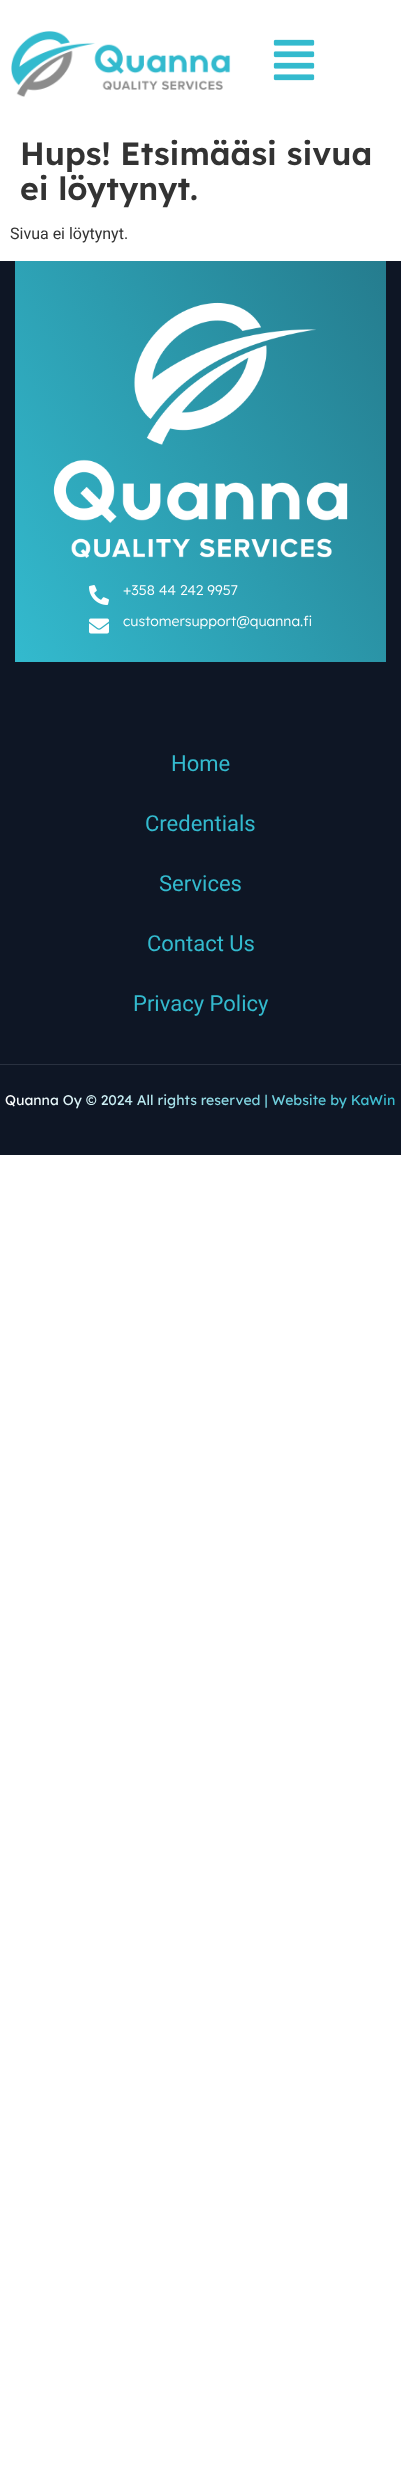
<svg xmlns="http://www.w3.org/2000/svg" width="401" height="2476">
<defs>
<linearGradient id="g1" gradientUnits="userSpaceOnUse" x1="5.3" y1="1100" x2="396" y2="1100"><stop offset="0" stop-color="#fff"/><stop offset="1" stop-color="#33bace"/></linearGradient>
<linearGradient id="g2" gradientUnits="userSpaceOnUse" x1="-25" y1="592" x2="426" y2="331"><stop offset="0" stop-color="#33bace"/><stop offset="1" stop-color="#257c8e"/></linearGradient>
</defs>
<rect width="100%" height="100%" fill="#fff"/>
<image x="11" y="31" width="220" height="66" href="media/1.png"/>
<image x="273" y="39" width="42" height="42" href="media/2.png"/>
<text x="20" y="165" style="font-family:Lexend Deca;font-size:32px;font-weight:600;fill:#333">Hups! Etsimääsi sivua</text>
<text x="20" y="200" style="font-family:Lexend Deca;font-size:32px;font-weight:600;fill:#333">ei löytynyt.</text>
<text x="10" y="239" style="font-family:Roboto;font-size:16px;fill:#333">Sivua ei löytynyt.</text>
<rect y="261" width="401" height="803" fill="#0e1625"/>
<rect x="15" y="261" width="371" height="401" fill="url(#g2)"/>
<image x="53" y="302" width="295" height="256" href="media/3.png"/>
<image x="89" y="585" width="20" height="20" href="media/4.png"/>
<text x="123" y="595" style="font-family:Lexend Deca;font-size:14px;font-weight:300;fill:#fff">+358 44 242 9957</text>
<image x="89" y="618" width="20" height="16" href="media/5.png"/>
<text x="123" y="626" style="font-family:Lexend Deca;font-size:14px;font-weight:300;fill:#fff">customersupport@quanna.fi</text>
<text x="171" y="771" style="font-family:Roboto;font-size:22px;fill:#33bace">Home</text>
<text x="145" y="831" style="font-family:Roboto;font-size:22px;fill:#33bace">Credentials</text>
<text x="159" y="891" style="font-family:Roboto;font-size:22px;fill:#33bace">Services</text>
<text x="147" y="951" style="font-family:Roboto;font-size:22px;fill:#33bace">Contact Us</text>
<text x="133" y="1011" style="font-family:Roboto;font-size:22px;fill:#33bace">Privacy Policy</text>
<rect y="1065" width="401" height="90" fill="#0e1625"/>
<rect y="1064" width="401" height="1" fill="#293140"/>
<text x="5" y="1105" style="font-family:Lexend Deca;font-size:14px;fill:url(#g1)">Quanna Oy © 2024 All rights reserved | Website by KaWin</text>
</svg>
